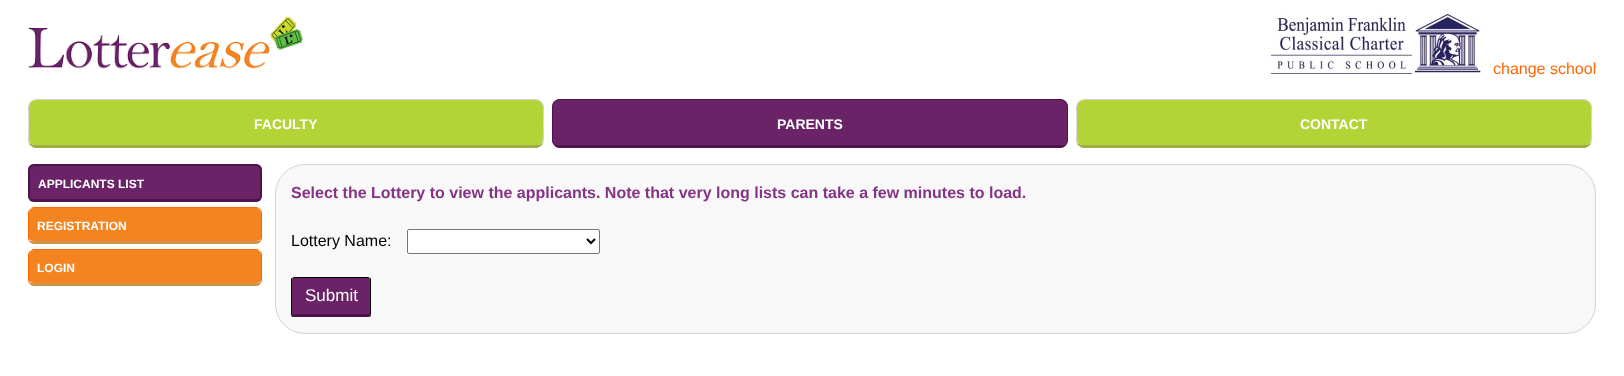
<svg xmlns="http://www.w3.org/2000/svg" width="1624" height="376">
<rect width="100%" height="100%" fill="#fff"/>
<image x="28" y="16" width="275" height="53" href="media/1.png"/>
<image x="1269" y="14" width="216" height="60" href="media/2.png"/>
<text x="1493" y="74" style="font-family:Liberation Sans;font-size:16px;fill:#f60">change school</text>
<path d="M36 100h500c4 0 7 3 7 7v33c0 3-3 5-7 5h-500c-4 0-7-2-7-5v-33c0-4 3-7 7-7z" fill="#b4d336"/>
<path d="M36 99c-2 0-4 1-6 3h1c1-1 3-2 5-2h500c2 0 4 1 5 2h1c-2-2-4-3-6-3z" fill="#d3d3d3"/>
<path d="M544 140v-33c0-2-1-4-2-5h-1l2 4c0 3 1 34-1 37l1 1z" fill="#d3d3d3"/>
<path d="M36 148h500c3 0 5-2 7-4l-1-1c-1 1-3 2-6 2h-500c-3 0-5-1-6-2l-1 1c2 2 4 4 7 4z" fill="#9eae43"/>
<path d="M28 107v33c0 1 0 3 1 4l1-1c-2-3-1-34-1-37l2-4h-1c-1 1-2 3-2 5z" fill="#d3d3d3"/>
<text x="254" y="129" style="font-family:Liberation Sans;font-size:14px;font-weight:bold;fill:#fff">FACULTY</text>
<rect x="552" y="99" width="516" height="49" rx="8" fill="#6a2367"/>
<rect x="552.5" y="99.5" width="515" height="48" rx="7.5" fill="none" stroke="#3a0c3aa6"/>
<rect x="556" y="145" width="508" height="2" fill="#3a0c3aa6"/>
<text x="777" y="129" style="font-family:Liberation Sans;font-size:14px;font-weight:bold;fill:#fff">PARENTS</text>
<path d="M1084 100h500c4 0 7 3 7 7v33c0 3-3 5-7 5h-500c-4 0-7-2-7-5v-33c0-4 3-7 7-7z" fill="#b4d336"/>
<path d="M1084 99c-2 0-4 1-6 3h1c1-1 3-2 5-2h500c2 0 4 1 5 2h1c-2-2-4-3-6-3z" fill="#d3d3d3"/>
<path d="M1592 140v-33c0-2-1-4-2-5h-1l2 4c0 3 1 34-1 37l1 1z" fill="#d3d3d3"/>
<path d="M1084 148h500c3 0 5-2 7-4l-1-1c-1 1-3 2-6 2h-500c-3 0-5-1-6-2l-1 1c2 2 4 4 7 4z" fill="#9eae43"/>
<path d="M1076 107v33c0 1 0 3 1 4l1-1c-2-3-1-34-1-37l2-4h-1c-1 1-2 3-2 5z" fill="#d3d3d3"/>
<text x="1300" y="129" style="font-family:Liberation Sans;font-size:14px;font-weight:bold;fill:#fff">CONTACT</text>
<rect x="28" y="164" width="234" height="38" rx="6" fill="#6a2367"/>
<rect x="29" y="165" width="232" height="36" rx="5" fill="none" stroke="#3a0c3aa6" stroke-width="2"/>
<rect x="31" y="199" width="228" height="1" fill="#3a0c3aa6"/>
<text x="38" y="188" style="font-family:Liberation Sans;font-size:12px;font-weight:bold;fill:#fff">APPLICANTS LIST</text>
<path d="M34 208h222c3 0 5 2 5 5v25c0 2-2 3-5 3h-222c-3 0-5-1-5-3v-25c0-3 2-5 5-5z" fill="#f38420"/>
<path d="M34 207c-2 0-3 1-4 2c1-1 3-1 4-1h223l3 1c-1-1-2-2-4-2z" fill="#f60"/>
<path d="M262 238v-25c0-1.5-1-3-2-4l-.5 .5c1 .5 1.5 2 1.5 3.5v25l-.5 1.5l.5 1.5c.5-1 1-2 1-3z" fill="#f60"/>
<path d="M34 244h222c2 0 4-1 5-3v-1l-3 1h-39h-148h-40l-2-1v1c1 2 3 3 5 3z" fill="#cf934c"/>
<path d="M28 213v25c0 1 .5 2 1 3l.5-1.5l-.5-1.5v-25c0-1.5 .5-3 1.5-3.5l-.5-.5c-1 1-2 2.5-2 4z" fill="#f60"/>
<text x="37" y="230" style="font-family:Liberation Sans;font-size:12px;font-weight:bold;fill:#fff">REGISTRATION</text>
<path d="M34 250h222c3 0 5 2 5 5v25c0 2-2 3-5 3h-222c-3 0-5-1-5-3v-25c0-3 2-5 5-5z" fill="#f38420"/>
<path d="M34 249c-2 0-3 1-4 2c1-1 3-1 4-1h223l3 1c-1-1-2-2-4-2z" fill="#f60"/>
<path d="M262 280v-25c0-1.5-1-3-2-4l-.5 .5c1 .5 1.5 2 1.5 3.5v25l-.5 1.5l.5 1.5c.5-1 1-2 1-3z" fill="#f60"/>
<path d="M34 286h222c2 0 4-1 5-3v-1l-3 1h-39h-148h-40l-2-1v1c1 2 3 3 5 3z" fill="#cf934c"/>
<path d="M28 255v25c0 1 .5 2 1 3l.5-1.5l-.5-1.5v-25c0-1.5 .5-3 1.5-3.5l-.5-.5c-1 1-2 2.5-2 4z" fill="#f60"/>
<text x="37" y="272" style="font-family:Liberation Sans;font-size:12px;font-weight:bold;fill:#fff">LOGIN</text>
<rect x="275.5" y="164.5" width="1320" height="169" rx="29.5" fill="#f8f8f8" stroke="#d3d3d3"/>
<text x="291" y="198" style="font-family:Liberation Sans;font-size:16px;font-weight:bold;fill:#853385">Select the Lottery to view the applicants. Note that very long lists can take a few minutes to load.</text>
<text x="291" y="246" style="font-family:Liberation Sans;font-size:16px;fill:#000">Lottery Name:</text>
<rect x="407.5" y="229.5" width="192" height="24" rx="1.5" fill="#fff" stroke="#767676"/>
<path d="M587 239l4 4l4-4" fill="none" stroke="#000" stroke-width="2"/>
<path d="M294 278h74c1 0 2 1 2 2v34h-78v-34c0-1 1-2 2-2z" fill="#6a2367"/>
<path d="M294 277l-2 1l1 1l1-1h74l1 1l1-1l-2-1z" fill="#000"/>
<path d="M371 314v-34c0-1 0-2-1-2l-.5 .5c.5 .5 .5 1 .5 1.5v34l.5 2z" fill="#000"/>
<path d="M294 317h75l2-1l-1-2h-78l-1 2c1 1 2 1 3 1z" fill="#4b144a"/>
<path d="M291 280v34l.5 2l.5-2v-34c0-.5 0-1 .5-1.5l-.5-.5c-1 0-1 1-1 2z" fill="#000"/>
<text x="305" y="301" style="font-family:Liberation Sans;font-size:17px;fill:#fff">Submit</text>
</svg>
